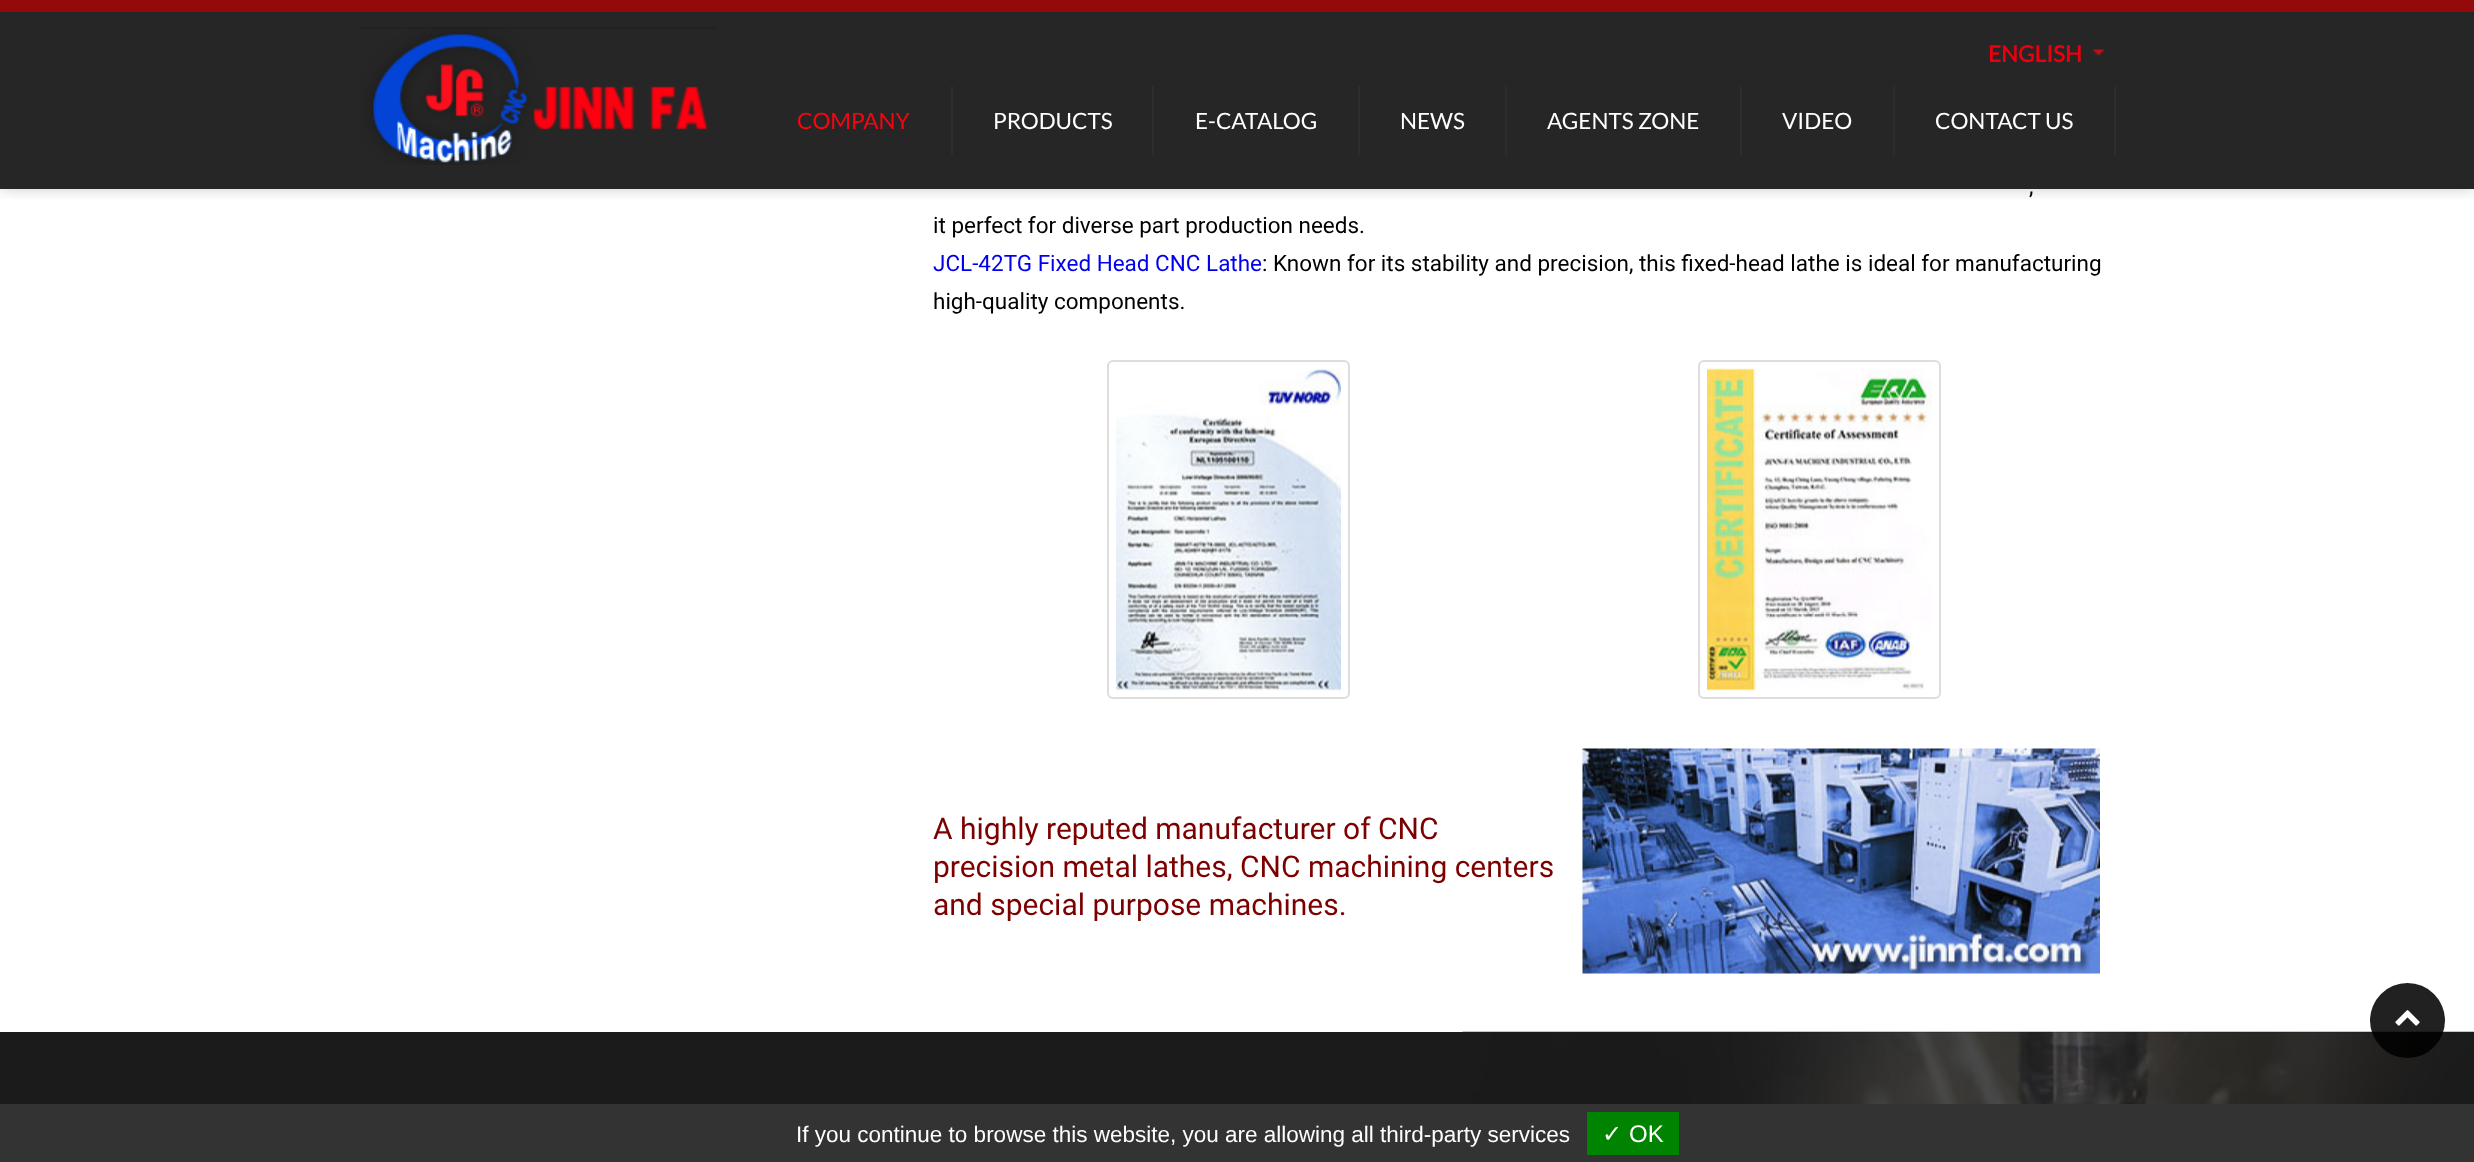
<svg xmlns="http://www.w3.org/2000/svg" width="2474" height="1162">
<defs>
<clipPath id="clip1"><rect x="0" y="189" width="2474" height="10"/></clipPath>
</defs>
<rect width="100%" height="100%" fill="#fff"/>
<g clip-path="url(#clip1)">
<rect width="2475" height="189" fill="#00000033" filter="blur(7.5px)"/>
</g>
<rect y="12" width="2474" height="177" fill="#000000d9"/>
<rect width="2474" height="12" fill="#940909"/>
<image x="360" y="27" width="357" height="138" href="media/1.png"/>
<image x="2092" y="49" width="13" height="7" href="media/2.png"/>
<text x="1988" y="62" style="font-family:Lato;font-size:22.5px;font-weight:bold;fill:#ec000e">ENGLISH</text>
<rect x="951" y="86" width="2" height="69" fill="#2e2d2d"/>
<text x="797" y="129" style="font-family:Lato;font-size:22.5px;fill:#fa0411">COMPANY</text>
<rect x="1152" y="86" width="2" height="69" fill="#2e2d2d"/>
<text x="993" y="129" style="font-family:Lato;font-size:22.5px;fill:#fff">PRODUCTS</text>
<rect x="1358" y="86" width="2" height="69" fill="#2e2d2d"/>
<text x="1195" y="129" style="font-family:Lato;font-size:22.5px;fill:#fff">E-CATALOG</text>
<rect x="1505" y="86" width="2" height="69" fill="#2e2d2d"/>
<text x="1400" y="129" style="font-family:Lato;font-size:22.5px;fill:#fff">NEWS</text>
<rect x="1740" y="86" width="2" height="69" fill="#2e2d2d"/>
<text x="1547" y="129" style="font-family:Lato;font-size:22.5px;fill:#fff">AGENTS ZONE</text>
<rect x="1893" y="86" width="2" height="69" fill="#2e2d2d"/>
<text x="1782" y="129" style="font-family:Lato;font-size:22.5px;fill:#fff">VIDEO</text>
<rect x="2114" y="86" width="2" height="69" fill="#2e2d2d"/>
<text x="1935" y="129" style="font-family:Lato;font-size:22.5px;fill:#fff">CONTACT US</text>
<text x="2029" y="194" style="font-family:Roboto;font-size:22.5px;fill:#000">,</text>
<text x="933" y="233" style="font-family:Roboto;font-size:22.5px;fill:#000">it perfect for diverse part production needs.</text>
<text x="933" y="271" style="font-family:Roboto;font-size:22.5px;fill:#00e">JCL-42TG Fixed Head CNC Lathe</text>
<text x="1262" y="271" style="font-family:Roboto;font-size:22.5px;fill:#000">: Known for its stability and precision, this fixed-head lathe is ideal for manufacturing</text>
<text x="933" y="309" style="font-family:Roboto;font-size:22.5px;fill:#000">high-quality components.</text>
<rect x="1108" y="361" width="241" height="337" rx="5" fill="none" stroke="#ddd" stroke-width="2"/>
<image x="1116" y="368" width="225" height="323" href="media/3.png"/>
<rect x="1699" y="361" width="241" height="337" rx="5" fill="none" stroke="#ddd" stroke-width="2"/>
<image x="1707" y="368" width="225" height="323" href="media/4.png"/>
<text x="933" y="839" style="font-family:Roboto;font-size:30px;fill:#7c0000">A highly reputed manufacturer of CNC</text>
<text x="933" y="877" style="font-family:Roboto;font-size:30px;fill:#7c0000">precision metal lathes, CNC machining centers</text>
<text x="933" y="915" style="font-family:Roboto;font-size:30px;fill:#7c0000">and special purpose machines.</text>
<image x="1582" y="748" width="518" height="226" href="media/5.png"/>
<rect y="1032" width="2474" height="72" fill="#1b1b1b"/>
<image x="1462" y="1031" width="1012" height="73" href="media/6.png"/>
<circle cx="2407.5" cy="1020.5" r="37.5" fill="#000000de"/>
<image x="2395" y="1010" width="25" height="16" href="media/7.png"/>
<rect y="1104" width="2474" height="58" fill="#333"/>
<text x="796" y="1142" style="font-family:Liberation Sans;font-size:22.5px;fill:#fff">If you continue to browse this website, you are allowing all third-party services</text>
<rect x="1587" y="1112" width="92" height="43" fill="#008300"/>
<text x="1602" y="1142" style="font-family:DejaVu Sans;font-size:24px;fill:#fff">✓</text>
<text x="1629" y="1142" style="font-family:Liberation Sans;font-size:24px;fill:#fff">OK</text>
</svg>
